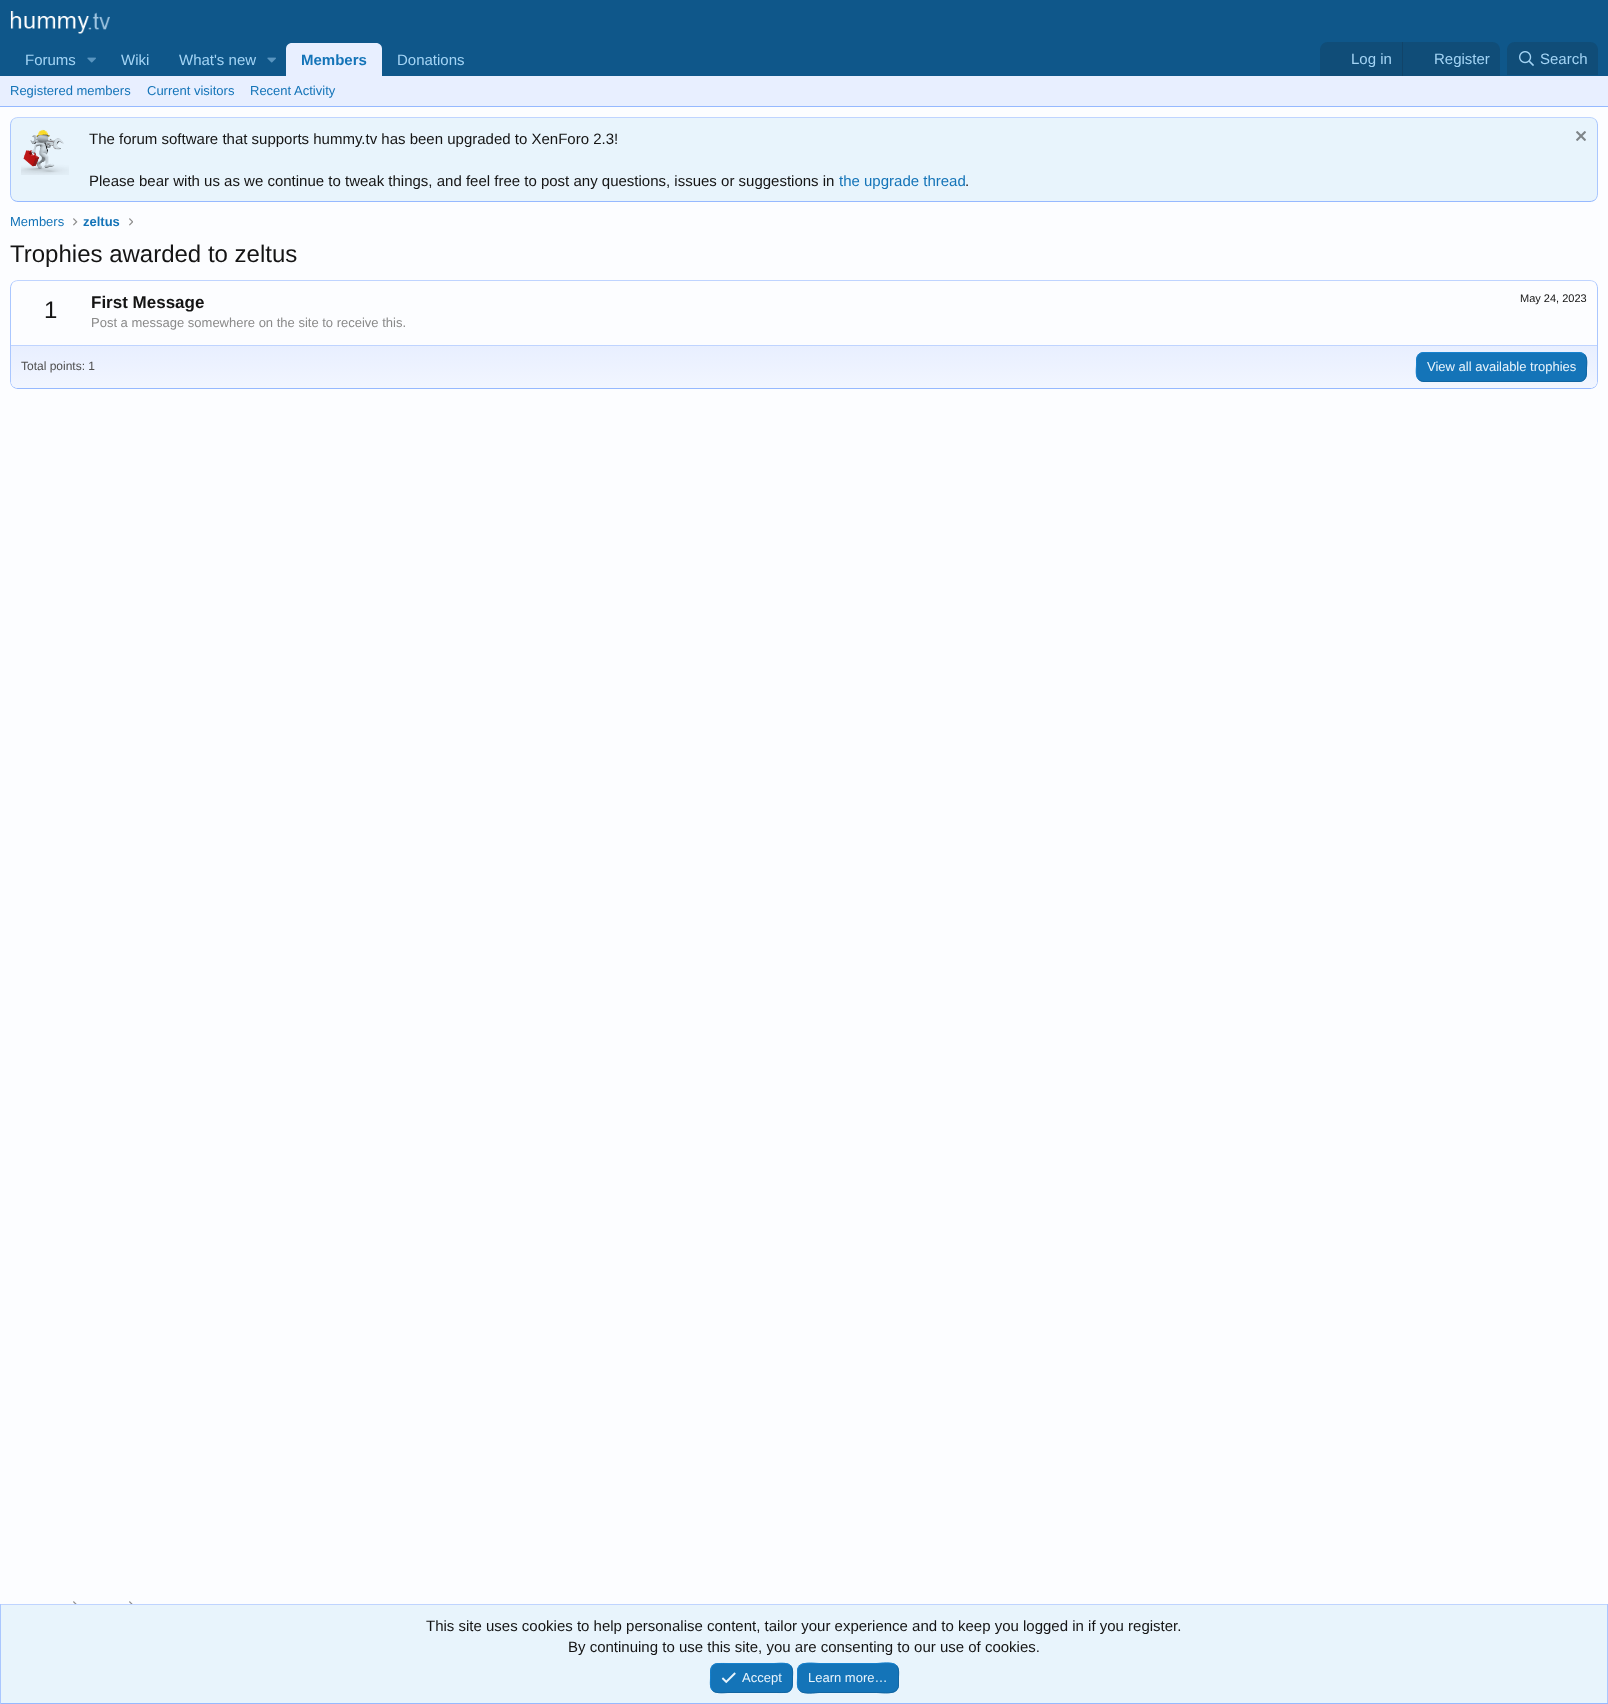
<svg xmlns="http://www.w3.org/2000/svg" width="1608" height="1704">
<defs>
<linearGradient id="g1" gradientUnits="userSpaceOnUse" x1="804" y1="346" x2="804" y2="388"><stop offset="0" stop-color="#e8efff"/><stop offset="1" stop-color="#f2f6ff"/></linearGradient>
</defs>
<rect width="100%" height="100%" fill="#fcfdff"/>
<rect width="1608" height="76" fill="#0f578a"/>
<image x="10" y="11" width="100" height="23" href="media/1.png"/>
<text x="25" y="65" style="font-family:Liberation Sans;font-size:15px;fill:#a3d4f5">Forums</text>
<image x="87" y="57" width="9" height="6" href="media/2.png"/>
<text x="121" y="65" style="font-family:Liberation Sans;font-size:15px;fill:#a3d4f5">Wiki</text>
<text x="179" y="65" style="font-family:Liberation Sans;font-size:15px;fill:#a3d4f5">What's new</text>
<image x="267" y="57" width="9" height="6" href="media/2.png"/>
<path d="M292 43h84c3.5 0 6 2.5 6 6v27h-96v-27c0-3.5 2.5-6 6-6z" fill="#e8efff"/>
<text x="301" y="65" style="font-family:Liberation Sans;font-size:15px;font-weight:bold;fill:#1474b8">Members</text>
<text x="397" y="65" style="font-family:Liberation Sans;font-size:15px;fill:#a3d4f5">Donations</text>
<path d="M1328 42h164c4.5 0 8 3.5 8 8v26h-180v-26c0-4.5 3.5-8 8-8z" fill="#104d78"/>
<text x="1351" y="64" style="font-family:Liberation Sans;font-size:15px;fill:#a3d4f5">Log in</text>
<rect x="1402" y="42" width="1" height="34" fill="#114469"/>
<text x="1434" y="64" style="font-family:Liberation Sans;font-size:15px;fill:#a3d4f5">Register</text>
<path d="M1515 42h75c4.5 0 8 3.5 8 8v25h-91v-25c0-4.5 3.5-8 8-8z" fill="#104d78"/>
<image x="1519" y="51" width="15" height="15" href="media/3.png"/>
<text x="1540" y="64" style="font-family:Liberation Sans;font-size:15px;fill:#a3d4f5">Search</text>
<rect y="76" width="1608" height="30" fill="#e8efff"/>
<rect y="106" width="1608" height="1" fill="#96b9ff"/>
<text x="10" y="95" style="font-family:Liberation Sans;font-size:13px;fill:#1474b8">Registered members</text>
<text x="147" y="95" style="font-family:Liberation Sans;font-size:13px;fill:#1474b8">Current visitors</text>
<text x="250" y="95" style="font-family:Liberation Sans;font-size:13px;fill:#1474b8">Recent Activity</text>
<rect x="10" y="117" width="1588" height="85" rx="8" fill="#e8f4fc"/>
<path d="M12.5 119.5c1.5-1 3.5-2 5.5-2h1572c2 0 4 1 5.5 2" fill="none" stroke="#bfd4ff"/>
<path d="M1595.5 119.5c1 1.5 2 3.5 2 5.5v69c0 2-1 4-2 5.5" fill="none" stroke="#aac7ff"/>
<path d="M1595.5 199.5c-1.5 1-3.5 2-5.5 2h-1572c-2 0-4-1-5.5-2" fill="none" stroke="#96b9ff"/>
<path d="M12.5 199.5c-1-1.5-2-3.5-2-5.5v-69c0-2 1-4 2-5.5" fill="none" stroke="#aac7ff"/>
<image x="21" y="129" width="48" height="46" href="media/4.png"/>
<text x="89" y="144" style="font-family:Liberation Sans;font-size:15px;fill:#141414">The forum software that supports hummy.tv has been upgraded to XenForo 2.3!</text>
<image x="1576" y="131" width="10" height="10" href="media/5.png"/>
<text x="89" y="186" style="font-family:Liberation Sans;font-size:15px;fill:#141414">Please bear with us as we continue to tweak things, and feel free to post any questions, issues or suggestions in</text>
<text x="839" y="186" style="font-family:Liberation Sans;font-size:15px;fill:#1474b8">the upgrade thread</text>
<text x="965" y="186" style="font-family:Liberation Sans;font-size:15px;fill:#141414">.</text>
<text x="10" y="226" style="font-family:Liberation Sans;font-size:13px;fill:#1474b8">Members</text>
<image x="73" y="218" width="5" height="8" href="media/6.png"/>
<text x="83" y="226" style="font-family:Liberation Sans;font-size:13px;font-weight:bold;fill:#1474b8">zeltus</text>
<image x="129" y="218" width="4" height="8" href="media/7.png"/>
<text x="10" y="262" style="font-family:Liberation Sans;font-size:24px;fill:#141414">Trophies awarded to zeltus</text>
<path d="M12.5 282.5c1.5-1 3.5-2 5.5-2h1572c2 0 4 1 5.5 2" fill="none" stroke="#bfd4ff"/>
<path d="M1595.5 282.5c1 1.5 2 3.5 2 5.5v93c0 2-1 4-2 5.5" fill="none" stroke="#aac7ff"/>
<path d="M1595.5 386.5c-1.5 1-3.5 2-5.5 2h-1572c-2 0-4-1-5.5-2" fill="none" stroke="#96b9ff"/>
<path d="M12.5 386.5c-1-1.5-2-3.5-2-5.5v-93c0-2 1-4 2-5.5" fill="none" stroke="#aac7ff"/>
<text x="44" y="318" style="font-family:Liberation Sans;font-size:24px;fill:#141414">1</text>
<text x="91" y="308" style="font-family:Liberation Sans;font-size:17px;font-weight:bold;fill:#141414">First Message</text>
<text x="1520" y="302" style="font-family:Liberation Sans;font-size:11px;fill:#141414">May 24, 2023</text>
<text x="91" y="327" style="font-family:Liberation Sans;font-size:13px;fill:#8a8a8a">Post a message somewhere on the site to receive this.</text>
<path d="M11 346h1586v35c0 4-3 7-7 7h-1572c-4 0-7-3-7-7z" fill="url(#g1)"/>
<rect x="11" y="345" width="1586" height="1" fill="#bfd4ff"/>
<text x="21" y="370" style="font-family:Liberation Sans;font-size:12px;fill:#4f4f4f">Total points: 1</text>
<rect x="1416" y="352" width="171" height="30" rx="8" fill="#1474b8"/>
<path d="M1584.5 354.5c3.5 4 2 10.5 2 15c0 5.5 0 12-7.5 12h-155c-2 0-4-1-5.5-2" fill="none" stroke="#1265a1"/>
<path d="M1418.5 379.5c-3.5-4-2-10.5-2-15c0-5.5 0-12 7.5-12h155c2 0 4 1 5.5 2" fill="none" stroke="#1782cf"/>
<text x="1427" y="371" style="font-family:Liberation Sans;font-size:13px;fill:#e8f4fc">View all available trophies</text>
<image x="73" y="1601" width="4" height="3" href="media/8.png"/>
<image x="129" y="1601" width="4" height="3" href="media/8.png"/>
<rect x="1" y="1605" width="1606" height="98" fill="#e8f4fc"/>
<rect y="1604" width="1608" height="1" fill="#bfd4ff"/>
<rect x="1607" y="1604" width="1" height="100" fill="#aac7ff"/>
<rect y="1703" width="1608" height="1" fill="#96b9ff"/>
<rect y="1604" width="1" height="100" fill="#aac7ff"/>
<text x="426" y="1631" style="font-family:Liberation Sans;font-size:15px;fill:#141414">This site uses cookies to help personalise content, tailor your experience and to keep you logged in if you register.</text>
<text x="568" y="1652" style="font-family:Liberation Sans;font-size:15px;fill:#141414">By continuing to use this site, you are consenting to our use of cookies.</text>
<rect x="710" y="1663" width="83" height="30" rx="8" fill="#1474b8"/>
<path d="M790.5 1665.5c3 3.5 2 8.5 2 12.5c0 16-2.5 14.5-18.5 14.5h-45c-4 0-12.5 1.5-16.5-2" fill="none" stroke="#1265a1"/>
<path d="M712.5 1690.5c-3-3.5-2-8.5-2-12.5c0-16 2.5-14.5 18.5-14.5h45c4 0 12.5-1.5 16.5 2" fill="none" stroke="#1782cf"/>
<image x="721" y="1672" width="15" height="12" href="media/9.png"/>
<text x="742" y="1682" style="font-family:Liberation Sans;font-size:13px;fill:#e8f4fc">Accept</text>
<rect x="797" y="1663" width="102" height="30" rx="8" fill="#1474b8"/>
<path d="M896.5 1665.5c3 3.5 2 8.5 2 12.5v8.5c-2 9-16.5 6-22 6h-57c-3.5 0-15.5 2.5-20-2" fill="none" stroke="#1265a1"/>
<path d="M799.5 1690.5c-3-3.5-2-8.5-2-12.5v-8.5c2-9 16.5-6 22-6h57c3.5 0 15.5-2.5 20 2" fill="none" stroke="#1782cf"/>
<text x="808" y="1682" style="font-family:Liberation Sans;font-size:13px;fill:#e8f4fc">Learn more…</text>
</svg>
